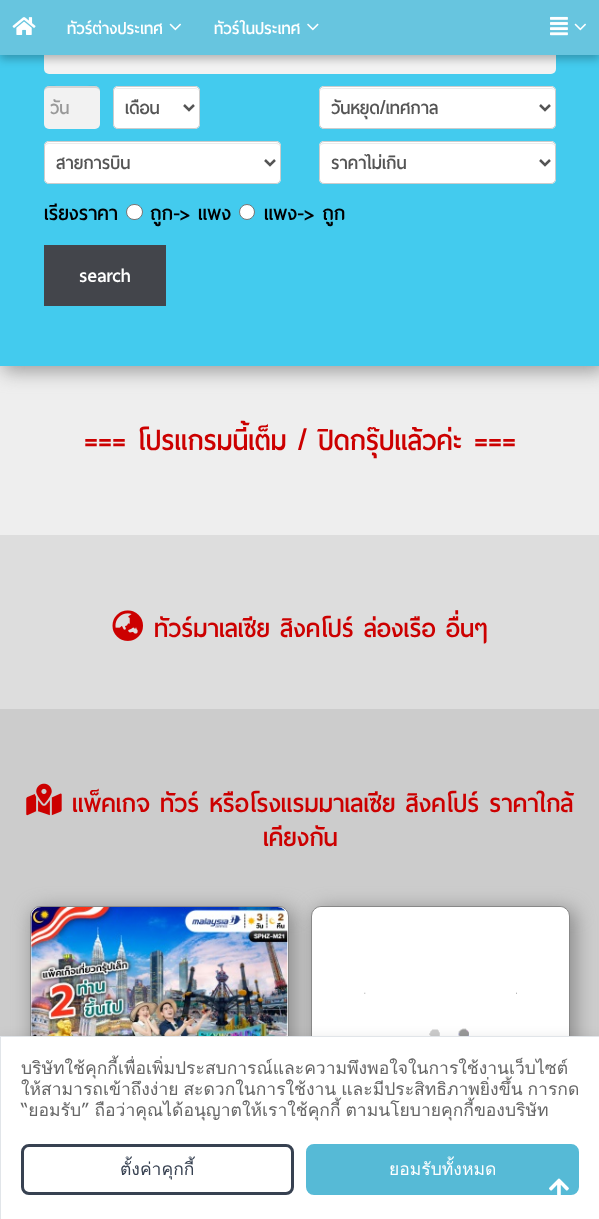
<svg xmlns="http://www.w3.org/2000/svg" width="599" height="1219">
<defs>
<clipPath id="clip1"><rect x="50" y="94" width="25" height="27"/></clipPath>
<clipPath id="clip2"><rect x="125" y="93" width="48" height="30"/></clipPath>
<clipPath id="clip3"><rect x="331" y="93" width="198" height="30"/></clipPath>
</defs>
<rect width="100%" height="100%" fill="#eee"/>
<rect x="3" y="-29" width="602" height="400" fill="#999" filter="blur(9.5px)"/>
<rect y="55" width="599" height="311" fill="#43cbee"/>
<rect x="44" y="31" width="512" height="43" rx="5" fill="#f2f2f2"/>
<rect y="4" width="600" height="55" fill="#00000042" filter="blur(4px)"/>
<rect width="599" height="55" fill="#67c5df"/>
<image x="12" y="17" width="24" height="18" href="media/1.png"/>
<text x="67" y="34" style="font-family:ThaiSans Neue;font-size:20.5px;font-weight:bold;fill:#fff">ทัวร์ต่างประเทศ</text>
<image x="169" y="23" width="12" height="8" href="media/2.png"/>
<text x="214" y="34" style="font-family:ThaiSans Neue;font-size:20.5px;font-weight:bold;fill:#fff">ทัวร์ในประเทศ</text>
<image x="307" y="23" width="12" height="8" href="media/3.png"/>
<image x="550" y="16" width="18" height="20" href="media/4.png"/>
<image x="574" y="23" width="12" height="8" href="media/2.png"/>
<rect x="44" y="86" width="56" height="43" rx="5" fill="#f2f2f2"/>
<path d="M49 88h46c3 0 5 2 5 4c0-8-7-6-13-6h-30c-6 0-13-2-13 6c0-2 2-4 5-4z" fill="#0000001f"/>
<g clip-path="url(#clip1)">
<text x="50" y="114" style="font-family:ThaiSans Neue;font-size:22.5px;font-weight:bold;fill:#999">วัน</text>
</g>
<rect x="113" y="86" width="87" height="43" rx="5" fill="#fff"/>
<path d="M118 89h77c2 0 4 1 4 3c0-2-2-4-4-4h-77c-2 0-3 1-4 2c1-1 2-1 4-1z" fill="#ececec"/>
<rect x="113.5" y="86.5" width="86" height="42" rx="4.5" fill="none" stroke="#ccc"/>
<path d="M184 105l5 5l5-5" fill="none" stroke="#555" stroke-width="2.5"/>
<g clip-path="url(#clip2)">
<text x="125" y="114" style="font-family:ThaiSans Neue;font-size:22.5px;font-weight:bold;fill:#555">เดือน</text>
</g>
<rect x="319" y="86" width="237" height="43" rx="5" fill="#fff"/>
<path d="M324 89h227c2 0 4 1 4 3c0-2-2-4-4-4h-227c-2 0-4 2-4 4c0-2 2-3 4-3z" fill="#ececec"/>
<rect x="319.5" y="86.5" width="236" height="42" rx="4.5" fill="none" stroke="#ccc"/>
<path d="M540 105l5 5l5-5" fill="none" stroke="#555" stroke-width="2.5"/>
<g clip-path="url(#clip3)">
<text x="331" y="114" style="font-family:ThaiSans Neue;font-size:22.5px;font-weight:bold;fill:#555">วันหยุด/เทศกาล</text>
</g>
<rect x="44" y="141" width="237" height="43" rx="5" fill="#fff"/>
<path d="M49 144h227c2 0 4 1 4 4c0-3-1-5-4-5h-227c-3 0-4 2-4 5c0-3 2-4 4-4z" fill="#ececec"/>
<rect x="44.5" y="141.5" width="236" height="42" rx="4.5" fill="none" stroke="#ccc"/>
<path d="M265 160l5 5l5-5" fill="none" stroke="#555" stroke-width="2.5"/>
<text x="56" y="169" style="font-family:ThaiSans Neue;font-size:22.5px;font-weight:bold;fill:#555">สายการบิน</text>
<rect x="319" y="141" width="237" height="43" rx="5" fill="#fff"/>
<path d="M324 144h227c2 0 4 1 4 4c0-3-1-5-4-5h-227c-3 0-4 2-4 5c0-3 2-4 4-4z" fill="#ececec"/>
<rect x="319.5" y="141.5" width="236" height="42" rx="4.5" fill="none" stroke="#ccc"/>
<path d="M540 160l5 5l5-5" fill="none" stroke="#555" stroke-width="2.5"/>
<text x="331" y="169" style="font-family:ThaiSans Neue;font-size:22.5px;font-weight:bold;fill:#555">ราคาไม่เกิน</text>
<text x="44" y="220" style="font-family:ThaiSans Neue;font-size:25px;font-weight:bold;fill:#000">เรียงราคา</text>
<rect x="126.5" y="204.5" width="16" height="15" rx="7.5" fill="#fff" stroke="#767676"/>
<text x="150" y="220" style="font-family:ThaiSans Neue;font-size:25px;font-weight:bold;fill:#000">ถูก-&gt; แพง</text>
<circle cx="247" cy="212" r="7.5" fill="#fff" stroke="#767676"/>
<text x="264" y="220" style="font-family:ThaiSans Neue;font-size:25px;font-weight:bold;fill:#000">แพง-&gt; ถูก</text>
<rect x="44" y="245" width="122" height="61" fill="#43454b"/>
<text x="79" y="282" style="font-family:ThaiSans Neue;font-size:25px;font-weight:bold;fill:#fff">search</text>
<text x="84" y="450" style="font-family:ThaiSans Neue;font-size:35px;font-weight:bold;fill:#c00">=== โปรแกรมนี้เต็ม / ปิดกรุ๊ปแล้วค่ะ ===</text>
<rect y="535" width="599" height="174" fill="#ddd"/>
<image x="112" y="610" width="31" height="31" href="media/5.png"/>
<text x="154" y="637" style="font-family:ThaiSans Neue;font-size:31.5px;font-weight:bold;fill:#c00">ทัวร์มาเลเซีย สิงคโปร์ ล่องเรือ อื่นๆ</text>
<rect y="709" width="599" height="327" fill="#ccc"/>
<image x="26" y="783" width="36" height="33" href="media/6.png"/>
<text x="72" y="812" style="font-family:ThaiSans Neue;font-size:31.5px;font-weight:bold;fill:#c00">แพ็คเกจ ทัวร์ หรือโรงแรมมาเลเซีย สิงคโปร์ ราคาใกล้</text>
<text x="263" y="846" style="font-family:ThaiSans Neue;font-size:31.5px;font-weight:bold;fill:#c00">เคียงกัน</text>
<rect x="33" y="909" width="261" height="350" rx="11" fill="#888" filter="blur(9.5px)"/>
<rect x="30.5" y="906.5" width="258" height="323" rx="9.5" fill="#fff" stroke="#888"/>
<image x="31" y="907" width="257" height="129" href="media/7.png"/>
<rect x="314" y="909" width="261" height="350" rx="11" fill="#888" filter="blur(9.5px)"/>
<rect x="311.5" y="906.5" width="258" height="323" rx="9.5" fill="#fff" stroke="#888"/>
<image x="318" y="907" width="245" height="129" href="media/8.png"/>
<rect y="1041" width="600" height="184" fill="#00000026" filter="blur(7.5px)"/>
<rect x="0.5" y="1036.5" width="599" height="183" fill="#fff" stroke="#e1e5e9"/>
<text x="21" y="1074" style="font-family:Loma;font-size:17.5px;fill:#666">บริษัทใช้คุกกี้เพื่อเพิ่มประสบการณ์และความพึงพอใจในการใช้งานเว็บไซต์</text>
<text x="21" y="1095" word-spacing="-1" style="font-family:Loma;font-size:17.5px;fill:#666">ให้สามารถเข้าถึงง่าย สะดวกในการใช้งาน และมีประสิทธิภาพยิ่งขึ้น การกด</text>
<text x="21" y="1116" word-spacing="-1" style="font-family:Loma;font-size:17.5px;fill:#666">“ยอมรับ” ถือว่าคุณได้อนุญาตให้เราใช้คุกกี้ ตามนโยบายคุกกี้ของบริษัท</text>
<rect x="22.5" y="1145.5" width="270" height="48" rx="6.5" fill="none" stroke="#374151" stroke-width="3"/>
<text x="120" y="1175" style="font-family:Loma;font-size:17.5px;fill:#374151">ตั้งค่าคุกกี้</text>
<rect x="307.5" y="1145.5" width="270" height="48" rx="6.5" fill="#56bad6" stroke="#56bad6" stroke-width="3"/>
<text x="389" y="1175" style="font-family:Loma;font-size:17.5px;fill:#fff">ยอมรับทั้งหมด</text>
<image x="549" y="1178" width="20" height="17" href="media/9.png"/>
</svg>
